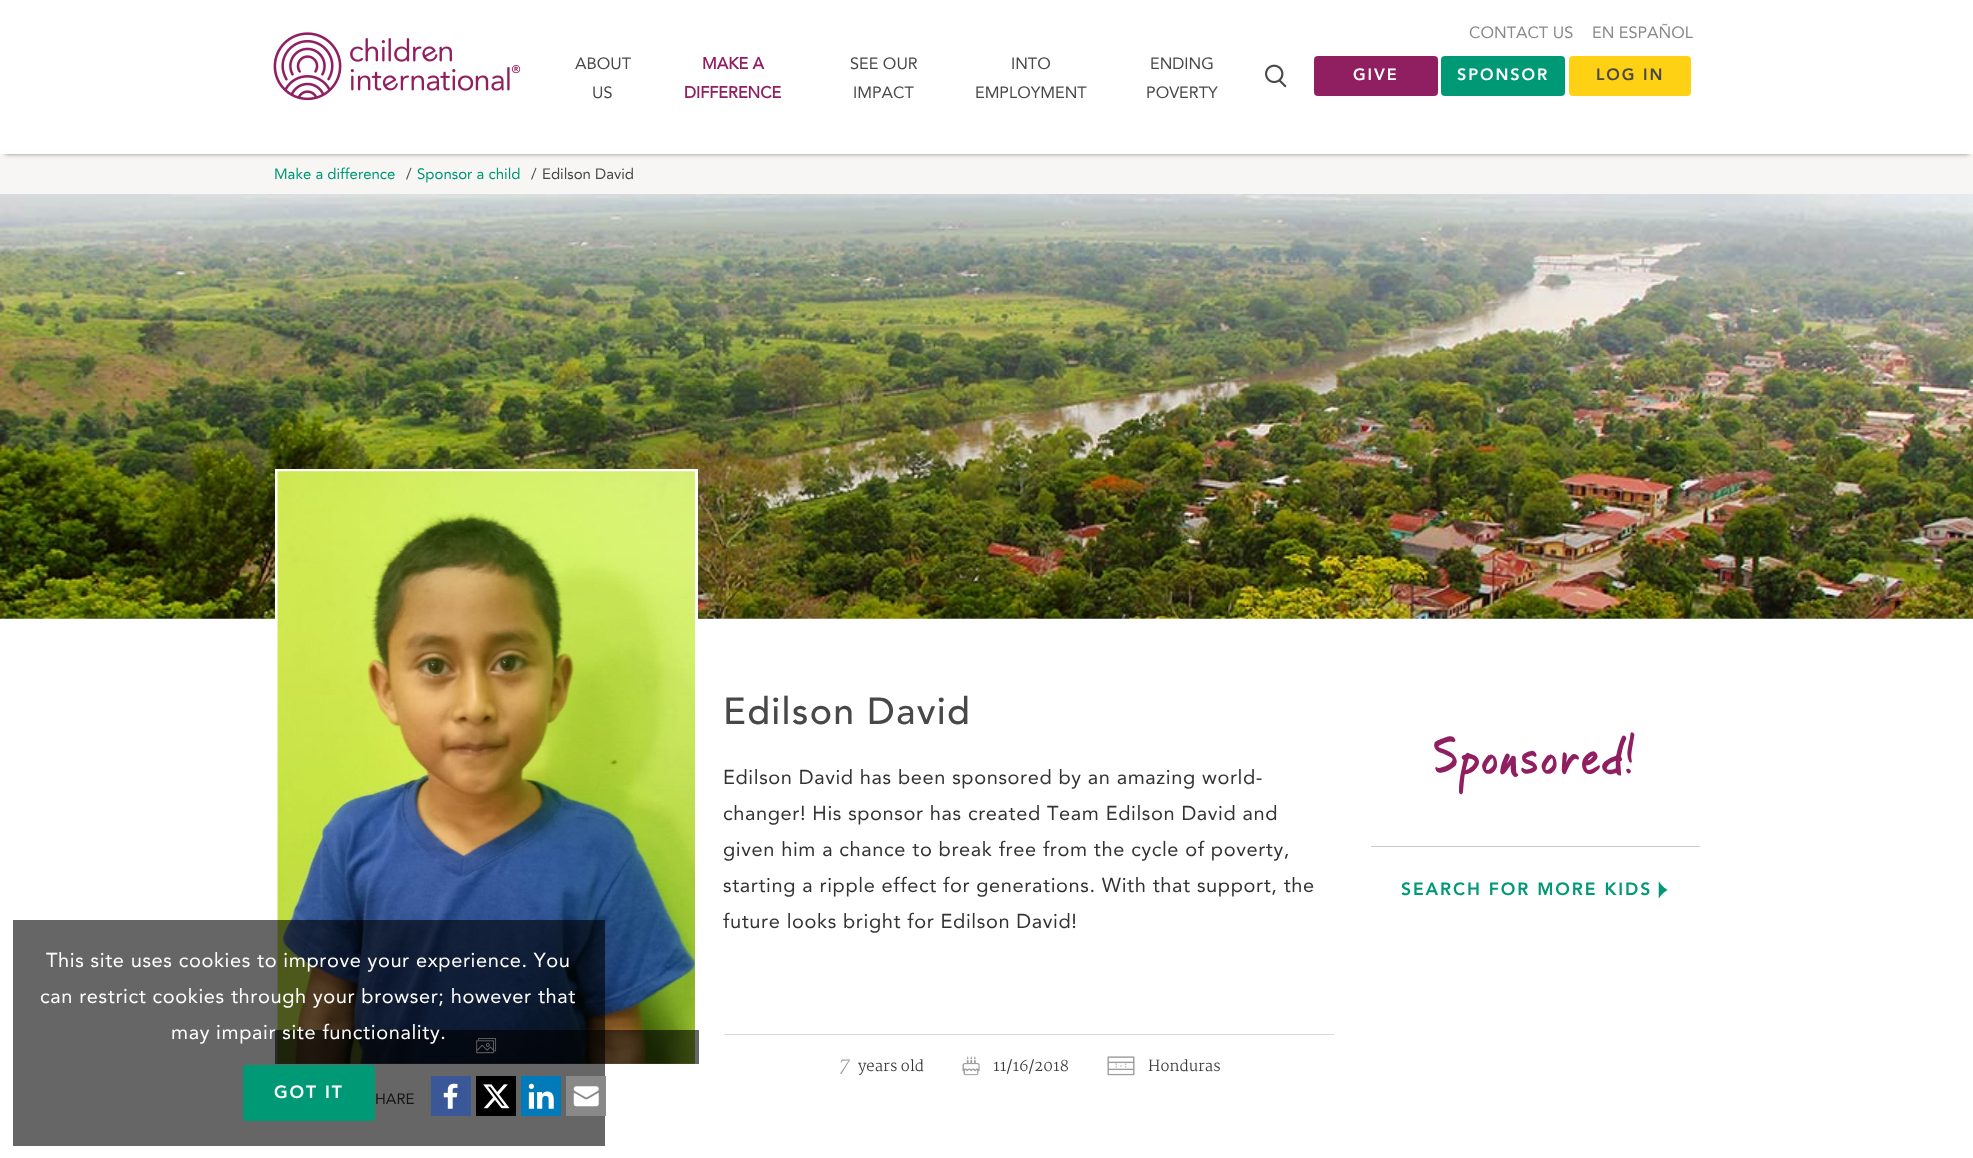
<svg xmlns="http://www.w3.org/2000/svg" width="1973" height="1158">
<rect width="100%" height="100%" fill="#fff"/>
<rect y="154" width="1973" height="40" fill="#f8f6f5"/>
<rect x="5" y="10" width="1964" height="144" fill="#898989" filter="blur(2.5px)"/>
<rect y="5" width="1973" height="149" fill="#fff"/>
<text x="1469" y="38" style="font-family:Avenir;font-size:16.25px;fill:#898989">CONTACT US</text>
<text x="1592" y="38" style="font-family:Avenir;font-size:16.25px;fill:#898989">EN ESPAÑOL</text>
<image x="273" y="32" width="248" height="69" href="media/1.png"/>
<text x="575" y="69" style="font-family:Avenir;font-size:16.25px;fill:#484848">ABOUT</text>
<text x="592" y="98" style="font-family:Avenir;font-size:16.25px;fill:#484848">US</text>
<text x="702" y="69" style="font-family:Avenir;font-size:16.25px;font-weight:bold;fill:#901f61">MAKE A</text>
<text x="684" y="98" style="font-family:Avenir;font-size:16.25px;font-weight:bold;fill:#901f61">DIFFERENCE</text>
<text x="850" y="69" style="font-family:Avenir;font-size:16.25px;fill:#484848">SEE OUR</text>
<text x="853" y="98" style="font-family:Avenir;font-size:16.25px;fill:#484848">IMPACT</text>
<text x="1011" y="69" style="font-family:Avenir;font-size:16.25px;fill:#484848">INTO</text>
<text x="975" y="98" style="font-family:Avenir;font-size:16.25px;fill:#484848">EMPLOYMENT</text>
<text x="1150" y="69" style="font-family:Avenir;font-size:16.25px;fill:#484848">ENDING</text>
<text x="1146" y="98" style="font-family:Avenir;font-size:16.25px;fill:#484848">POVERTY</text>
<image x="1265" y="64" width="22" height="24" href="media/2.png"/>
<rect x="1314" y="56" width="124" height="40" rx="4" fill="#901f61"/>
<text x="1353" y="80" style="font-family:'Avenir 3';font-size:16.25px;letter-spacing:1.9px;fill:#fff">GIVE</text>
<rect x="1441" y="56" width="124" height="40" rx="4" fill="#009976"/>
<text x="1457" y="80" style="font-family:'Avenir 3';font-size:16.25px;letter-spacing:1.9px;fill:#fff">SPONSOR</text>
<rect x="1569" y="56" width="122" height="40" rx="4" fill="#fed115"/>
<text x="1596" y="80" style="font-family:'Avenir 3';font-size:16.25px;letter-spacing:1.9px;fill:#484848">LOG IN</text>
<text x="274" y="179" style="font-family:Avenir;font-size:15px;fill:#009976">Make a difference</text>
<text x="406" y="179" style="font-family:Avenir;font-size:15px;fill:#484848">/</text>
<text x="417" y="179" style="font-family:Avenir;font-size:15px;fill:#009976">Sponsor a child</text>
<text x="531" y="179" style="font-family:Avenir;font-size:15px;fill:#484848">/</text>
<text x="542" y="179" style="font-family:Avenir;font-size:15px;fill:#484848">Edilson David</text>
<image x="0" y="194" width="1973" height="425" href="media/3.png"/>
<rect x="276.5" y="470.5" width="420" height="594" fill="none" stroke="#fff" stroke-width="3"/>
<image x="277" y="471" width="418" height="593" href="media/6.png"/>
<rect x="275" y="1030" width="424" height="34" fill="#00000099"/>
<image x="476" y="1038" width="21" height="16" href="media/7.png"/>
<text x="375" y="1104" style="font-family:Avenir;font-size:15px;fill:#333">HARE</text>
<rect x="13" y="920" width="592" height="226" fill="#00000099"/>
<text x="46" y="967" style="font-family:Avenir;font-size:20px;letter-spacing:0.62px;fill:#fff">This site uses cookies to improve your experience. You</text>
<text x="40" y="1003" style="font-family:Avenir;font-size:20px;letter-spacing:0.62px;fill:#fff">can restrict cookies through your browser; however that</text>
<text x="171" y="1039" style="font-family:Avenir;font-size:20px;letter-spacing:0.62px;fill:#fff">may impair site functionality.</text>
<rect x="243" y="1065" width="132" height="56" rx="4" fill="#009976"/>
<text x="274" y="1098" style="font-family:'Avenir 3';font-size:17.5px;letter-spacing:1.9px;fill:#fff">GOT IT</text>
<text x="723" y="724" style="font-family:'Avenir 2';font-size:37.5px;letter-spacing:1.25px;fill:#484848">Edilson David</text>
<text x="723" y="784" style="font-family:Avenir;font-size:20px;letter-spacing:0.62px;fill:#333">Edilson David has been sponsored by an amazing world-</text>
<text x="723" y="820" style="font-family:Avenir;font-size:20px;letter-spacing:0.62px;fill:#333">changer! His sponsor has created Team Edilson David and</text>
<text x="723" y="856" style="font-family:Avenir;font-size:20px;letter-spacing:0.62px;fill:#333">given him a chance to break free from the cycle of poverty,</text>
<text x="723" y="892" style="font-family:Avenir;font-size:20px;letter-spacing:0.62px;fill:#333">starting a ripple effect for generations. With that support, the</text>
<text x="723" y="928" style="font-family:Avenir;font-size:20px;letter-spacing:0.62px;fill:#333">future looks bright for Edilson David!</text>
<rect x="724" y="1034" width="610" height="1" fill="#dadada"/>
<text x="837" y="1071" style="font-family:Martel;font-size:19px;font-weight:300;font-style:italic;fill:#9e9e9e">7</text>
<text x="858" y="1071" style="font-family:Martel;font-size:15px;font-weight:300;fill:#333">years old</text>
<image x="962" y="1056" width="18" height="20" href="media/4.png"/>
<text x="993" y="1071" style="font-family:Martel;font-size:15px;font-weight:300;fill:#333">11/16/2018</text>
<image x="1107" y="1056" width="28" height="20" href="media/5.png"/>
<text x="1148" y="1071" style="font-family:Martel;font-size:15px;font-weight:300;fill:#333">Honduras</text>
<rect x="431" y="1076" width="40" height="40" fill="#3a5897"/>
<image x="443" y="1083" width="15" height="26" href="media/8.png"/>
<rect x="476" y="1076" width="40" height="40" fill="#000"/>
<image x="483" y="1084" width="27" height="25" href="media/9.png"/>
<rect x="521" y="1076" width="40" height="40" fill="#007ab9"/>
<image x="528" y="1083" width="26" height="26" href="media/10.png"/>
<rect x="566" y="1076" width="40" height="40" fill="#898989"/>
<image x="573" y="1086" width="26" height="21" href="media/11.png"/>
<text x="1433" y="774" style="font-family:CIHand;font-size:52.5px;letter-spacing:1.25px;fill:#901f61">Sponsored!</text>
<rect x="1371" y="846" width="329" height="1" fill="#ccc"/>
<text x="1401" y="895" style="font-family:'Avenir 3';font-size:17.5px;letter-spacing:1.9px;fill:#009976">SEARCH FOR MORE KIDS</text>
<image x="1658" y="881" width="10" height="18" href="media/12.png"/>
</svg>
